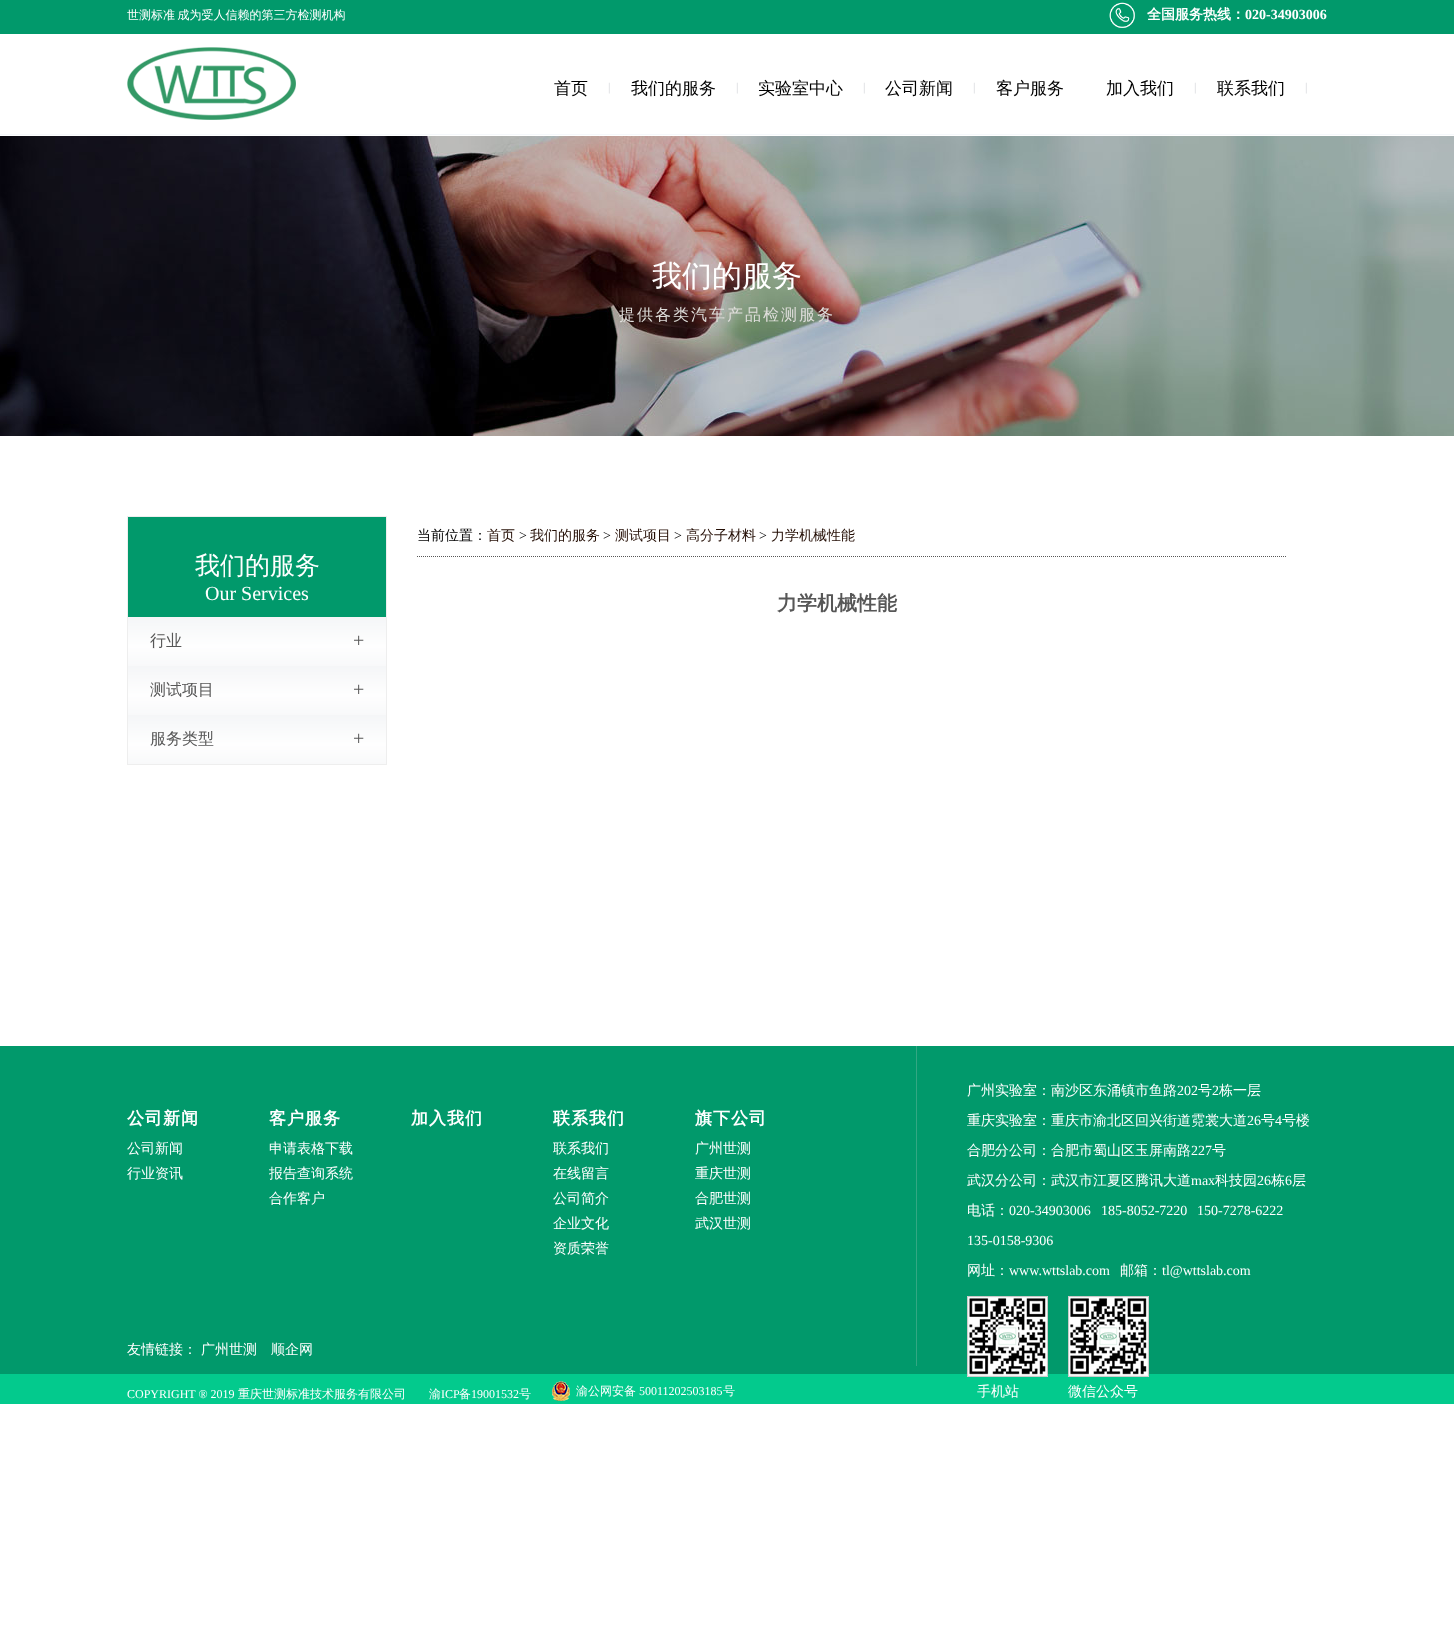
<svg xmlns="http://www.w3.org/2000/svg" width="1454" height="1634">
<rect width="100%" height="100%" fill="#fff"/>
<rect width="1454" height="34" fill="#01996b"/>
<text x="127" y="19" word-spacing="-1" style="font-family:WenQuanYi Zen Hei;font-size:12px;font-weight:500;fill:#fff">世测标准 成为受人信赖的第三方检测机构</text>
<image x="1109" y="2" width="26" height="26" href="media/1.png"/>
<text x="1147" y="19" style="font-family:WenQuanYi Zen Hei;font-size:14px;font-weight:bold;fill:#fff">全国服务热线：</text>
<text x="1245" y="19" style="font-family:Liberation Serif;font-size:14px;font-weight:bold;fill:#fff">020-34903006</text>
<rect y="134" width="1454" height="1" fill="#f5f8fb"/>
<image x="127" y="47" width="169" height="73" href="media/2.png"/>
<text x="554" y="94" style="font-family:WenQuanYi Zen Hei;font-size:17px;font-weight:500;fill:#000">首页</text>
<text x="608" y="91" style="font-family:Liberation Serif;font-size:12px;fill:#d2d5d8">|</text>
<text x="631" y="94" style="font-family:WenQuanYi Zen Hei;font-size:17px;font-weight:500;fill:#000">我们的服务</text>
<text x="736" y="91" style="font-family:Liberation Serif;font-size:12px;fill:#d2d5d8">|</text>
<text x="758" y="94" style="font-family:WenQuanYi Zen Hei;font-size:17px;font-weight:500;fill:#000">实验室中心</text>
<text x="863" y="91" style="font-family:Liberation Serif;font-size:12px;fill:#d2d5d8">|</text>
<text x="885" y="94" style="font-family:WenQuanYi Zen Hei;font-size:17px;font-weight:500;fill:#000">公司新闻</text>
<text x="973" y="91" style="font-family:Liberation Serif;font-size:12px;fill:#d2d5d8">|</text>
<text x="996" y="94" style="font-family:WenQuanYi Zen Hei;font-size:17px;font-weight:500;fill:#000">客户服务</text>
<text x="1106" y="94" style="font-family:WenQuanYi Zen Hei;font-size:17px;font-weight:500;fill:#000">加入我们</text>
<text x="1194" y="91" style="font-family:Liberation Serif;font-size:12px;fill:#d2d5d8">|</text>
<text x="1217" y="94" style="font-family:WenQuanYi Zen Hei;font-size:17px;font-weight:500;fill:#000">联系我们</text>
<text x="1305" y="91" style="font-family:Liberation Serif;font-size:12px;fill:#d2d5d8">|</text>
<image x="0" y="136" width="1454" height="300" href="media/3.png"/>
<text x="652" y="286" style="font-family:WenQuanYi Zen Hei;font-size:30px;font-weight:500;fill:#fff">我们的服务</text>
<text x="619" y="320" style="font-family:WenQuanYi Zen Hei;font-size:16px;font-weight:500;letter-spacing:2px;fill:#dfdedb">提供各类汽车产品检测服务</text>
<rect x="127.5" y="516.5" width="259" height="248" fill="none" stroke="#eee"/>
<rect x="128" y="517" width="258" height="100" fill="#01996b"/>
<text x="195" y="574" style="font-family:WenQuanYi Zen Hei;font-size:25px;font-weight:500;fill:#fff">我们的服务</text>
<text x="205" y="600" style="font-family:Liberation Serif;font-size:20px;fill:#fff">Our Services</text>
<image x="128" y="617" width="258" height="49" href="media/4.png"/>
<text x="150" y="646" style="font-family:WenQuanYi Zen Hei;font-size:16px;font-weight:500;fill:#575757">行业</text>
<text x="353" y="647" style="font-family:Liberation Serif;font-size:20px;fill:#575757">+</text>
<image x="128" y="666" width="258" height="49" href="media/4.png"/>
<text x="150" y="695" style="font-family:WenQuanYi Zen Hei;font-size:16px;font-weight:500;fill:#575757">测试项目</text>
<text x="353" y="696" style="font-family:Liberation Serif;font-size:20px;fill:#575757">+</text>
<image x="128" y="715" width="258" height="49" href="media/4.png"/>
<text x="150" y="744" style="font-family:WenQuanYi Zen Hei;font-size:16px;font-weight:500;fill:#575757">服务类型</text>
<text x="353" y="745" style="font-family:Liberation Serif;font-size:20px;fill:#575757">+</text>
<text x="417" y="540" style="font-family:WenQuanYi Zen Hei;font-size:14px;font-weight:500;fill:#000">当前位置：</text>
<text x="487" y="540" style="font-family:WenQuanYi Zen Hei;font-size:14px;font-weight:500;fill:#240e05">首页</text>
<text x="519" y="540" style="font-family:Liberation Serif;font-size:14px;fill:#000">&gt;</text>
<text x="530" y="540" style="font-family:WenQuanYi Zen Hei;font-size:14px;font-weight:500;fill:#240e05">我们的服务</text>
<text x="603" y="540" style="font-family:Liberation Serif;font-size:14px;fill:#000">&gt;</text>
<text x="615" y="540" style="font-family:WenQuanYi Zen Hei;font-size:14px;font-weight:500;fill:#240e05">测试项目</text>
<text x="674" y="540" style="font-family:Liberation Serif;font-size:14px;fill:#000">&gt;</text>
<text x="686" y="540" style="font-family:WenQuanYi Zen Hei;font-size:14px;font-weight:500;fill:#240e05">高分子材料</text>
<text x="759" y="540" style="font-family:Liberation Serif;font-size:14px;fill:#000">&gt;</text>
<text x="771" y="540" style="font-family:WenQuanYi Zen Hei;font-size:14px;font-weight:500;fill:#240e05">力学机械性能</text>
<path d="M417 556.5h870" fill="none" stroke="#575757" stroke-dasharray="1 1"/>
<text x="777" y="610" style="font-family:WenQuanYi Zen Hei;font-size:20px;font-weight:bold;fill:#575757">力学机械性能</text>
<rect y="1046" width="1454" height="328" fill="#01996b"/>
<text x="127" y="1124" style="font-family:WenQuanYi Zen Hei;font-size:17px;font-weight:bold;letter-spacing:1px;fill:#fff">公司新闻</text>
<text x="127" y="1153" style="font-family:WenQuanYi Zen Hei;font-size:14px;font-weight:500;fill:#fff">公司新闻</text>
<text x="127" y="1178" style="font-family:WenQuanYi Zen Hei;font-size:14px;font-weight:500;fill:#fff">行业资讯</text>
<text x="269" y="1124" style="font-family:WenQuanYi Zen Hei;font-size:17px;font-weight:bold;letter-spacing:1px;fill:#fff">客户服务</text>
<text x="269" y="1153" style="font-family:WenQuanYi Zen Hei;font-size:14px;font-weight:500;fill:#fff">申请表格下载</text>
<text x="269" y="1178" style="font-family:WenQuanYi Zen Hei;font-size:14px;font-weight:500;fill:#fff">报告查询系统</text>
<text x="269" y="1203" style="font-family:WenQuanYi Zen Hei;font-size:14px;font-weight:500;fill:#fff">合作客户</text>
<text x="411" y="1124" style="font-family:WenQuanYi Zen Hei;font-size:17px;font-weight:bold;letter-spacing:1px;fill:#fff">加入我们</text>
<text x="553" y="1124" style="font-family:WenQuanYi Zen Hei;font-size:17px;font-weight:bold;letter-spacing:1px;fill:#fff">联系我们</text>
<text x="553" y="1153" style="font-family:WenQuanYi Zen Hei;font-size:14px;font-weight:500;fill:#fff">联系我们</text>
<text x="553" y="1178" style="font-family:WenQuanYi Zen Hei;font-size:14px;font-weight:500;fill:#fff">在线留言</text>
<text x="553" y="1203" style="font-family:WenQuanYi Zen Hei;font-size:14px;font-weight:500;fill:#fff">公司简介</text>
<text x="553" y="1228" style="font-family:WenQuanYi Zen Hei;font-size:14px;font-weight:500;fill:#fff">企业文化</text>
<text x="553" y="1253" style="font-family:WenQuanYi Zen Hei;font-size:14px;font-weight:500;fill:#fff">资质荣誉</text>
<text x="695" y="1124" style="font-family:WenQuanYi Zen Hei;font-size:17px;font-weight:bold;letter-spacing:1px;fill:#fff">旗下公司</text>
<text x="695" y="1153" style="font-family:WenQuanYi Zen Hei;font-size:14px;font-weight:500;fill:#fff">广州世测</text>
<text x="695" y="1178" style="font-family:WenQuanYi Zen Hei;font-size:14px;font-weight:500;fill:#fff">重庆世测</text>
<text x="695" y="1203" style="font-family:WenQuanYi Zen Hei;font-size:14px;font-weight:500;fill:#fff">合肥世测</text>
<text x="695" y="1228" style="font-family:WenQuanYi Zen Hei;font-size:14px;font-weight:500;fill:#fff">武汉世测</text>
<rect x="916" y="1046" width="1" height="320" fill="#33a783"/>
<text x="967" y="1095" style="font-family:WenQuanYi Zen Hei;font-size:14px;font-weight:500;fill:#fff">广州实验室：南沙区东涌镇市鱼路</text>
<text x="1177" y="1095" style="font-family:Liberation Serif;font-size:14px;fill:#fff">202</text>
<text x="1198" y="1095" style="font-family:WenQuanYi Zen Hei;font-size:14px;font-weight:500;fill:#fff">号</text>
<text x="1212" y="1095" style="font-family:Liberation Serif;font-size:14px;fill:#fff">2</text>
<text x="1219" y="1095" style="font-family:WenQuanYi Zen Hei;font-size:14px;font-weight:500;fill:#fff">栋一层</text>
<text x="967" y="1125" style="font-family:WenQuanYi Zen Hei;font-size:14px;font-weight:500;fill:#fff">重庆实验室：重庆市渝北区回兴街道霓裳大道</text>
<text x="1247" y="1125" style="font-family:Liberation Serif;font-size:14px;fill:#fff">26</text>
<text x="1261" y="1125" style="font-family:WenQuanYi Zen Hei;font-size:14px;font-weight:500;fill:#fff">号</text>
<text x="1275" y="1125" style="font-family:Liberation Serif;font-size:14px;fill:#fff">4</text>
<text x="1282" y="1125" style="font-family:WenQuanYi Zen Hei;font-size:14px;font-weight:500;fill:#fff">号楼</text>
<text x="967" y="1155" style="font-family:WenQuanYi Zen Hei;font-size:14px;font-weight:500;fill:#fff">合肥分公司：合肥市蜀山区玉屏南路</text>
<text x="1191" y="1155" style="font-family:Liberation Serif;font-size:14px;fill:#fff">227</text>
<text x="1212" y="1155" style="font-family:WenQuanYi Zen Hei;font-size:14px;font-weight:500;fill:#fff">号</text>
<text x="967" y="1185" style="font-family:WenQuanYi Zen Hei;font-size:14px;font-weight:500;fill:#fff">武汉分公司：武汉市江夏区腾讯大道</text>
<text x="1191" y="1185" style="font-family:Liberation Serif;font-size:14px;fill:#fff">max</text>
<text x="1215" y="1185" style="font-family:WenQuanYi Zen Hei;font-size:14px;font-weight:500;fill:#fff">科技园</text>
<text x="1257" y="1185" style="font-family:Liberation Serif;font-size:14px;fill:#fff">26</text>
<text x="1271" y="1185" style="font-family:WenQuanYi Zen Hei;font-size:14px;font-weight:500;fill:#fff">栋</text>
<text x="1285" y="1185" style="font-family:Liberation Serif;font-size:14px;fill:#fff">6</text>
<text x="1292" y="1185" style="font-family:WenQuanYi Zen Hei;font-size:14px;font-weight:500;fill:#fff">层</text>
<text x="967" y="1215" style="font-family:WenQuanYi Zen Hei;font-size:14px;font-weight:500;fill:#fff">电话：</text>
<text x="1009" y="1215" style="font-family:Liberation Serif;font-size:14px;fill:#fff">020-34903006</text>
<text x="1101" y="1215" style="font-family:Liberation Serif;font-size:14px;fill:#fff">185-8052-7220</text>
<text x="1197" y="1215" style="font-family:Liberation Serif;font-size:14px;fill:#fff">150-7278-6222</text>
<text x="967" y="1245" style="font-family:Liberation Serif;font-size:14px;fill:#fff">135-0158-9306</text>
<text x="967" y="1275" style="font-family:WenQuanYi Zen Hei;font-size:14px;font-weight:500;fill:#fff">网址：</text>
<text x="1009" y="1275" style="font-family:Liberation Serif;font-size:14px;fill:#fff">www.wttslab.com</text>
<text x="1120" y="1275" style="font-family:WenQuanYi Zen Hei;font-size:14px;font-weight:500;fill:#fff">邮箱：</text>
<text x="1162" y="1275" style="font-family:Liberation Serif;font-size:14px;fill:#fff">tl@wttslab.com</text>
<rect y="1374" width="1454" height="30" fill="#03ca8d"/>
<image x="967" y="1296" width="81" height="81" href="media/5.png"/>
<text x="977" y="1396" style="font-family:WenQuanYi Zen Hei;font-size:14px;font-weight:500;fill:#fff">手机站</text>
<image x="1068" y="1296" width="81" height="81" href="media/6.png"/>
<text x="1068" y="1396" style="font-family:WenQuanYi Zen Hei;font-size:14px;font-weight:500;fill:#fff">微信公众号</text>
<text x="127" y="1354" style="font-family:WenQuanYi Zen Hei;font-size:14px;font-weight:500;fill:#fff">友情链接：</text>
<text x="201" y="1354" style="font-family:WenQuanYi Zen Hei;font-size:14px;font-weight:500;fill:#fff">广州世测</text>
<text x="271" y="1354" style="font-family:WenQuanYi Zen Hei;font-size:14px;font-weight:500;fill:#fff">顺企网</text>
<text x="127" y="1398" style="font-family:Liberation Serif;font-size:12px;fill:#fff">COPYRIGHT ® 2019</text>
<text x="238" y="1398" style="font-family:WenQuanYi Zen Hei;font-size:12px;font-weight:500;fill:#fff">重庆世测标准技术服务有限公司</text>
<text x="429" y="1398" style="font-family:WenQuanYi Zen Hei;font-size:12px;font-weight:500;fill:#fff">渝</text>
<text x="441" y="1398" style="font-family:Liberation Serif;font-size:12px;fill:#fff">ICP</text>
<text x="459" y="1398" style="font-family:WenQuanYi Zen Hei;font-size:12px;font-weight:500;fill:#fff">备</text>
<text x="471" y="1398" style="font-family:Liberation Serif;font-size:12px;fill:#fff">19001532</text>
<text x="519" y="1398" style="font-family:WenQuanYi Zen Hei;font-size:12px;font-weight:500;fill:#fff">号</text>
<image x="552" y="1381" width="18" height="20" href="media/7.png"/>
<text x="576" y="1395" style="font-family:WenQuanYi Zen Hei;font-size:12px;font-weight:500;fill:#fff">渝公网安备</text>
<text x="639" y="1395" style="font-family:Liberation Serif;font-size:12px;fill:#fff">50011202503185</text>
<text x="723" y="1395" style="font-family:WenQuanYi Zen Hei;font-size:12px;font-weight:500;fill:#fff">号</text>
</svg>
